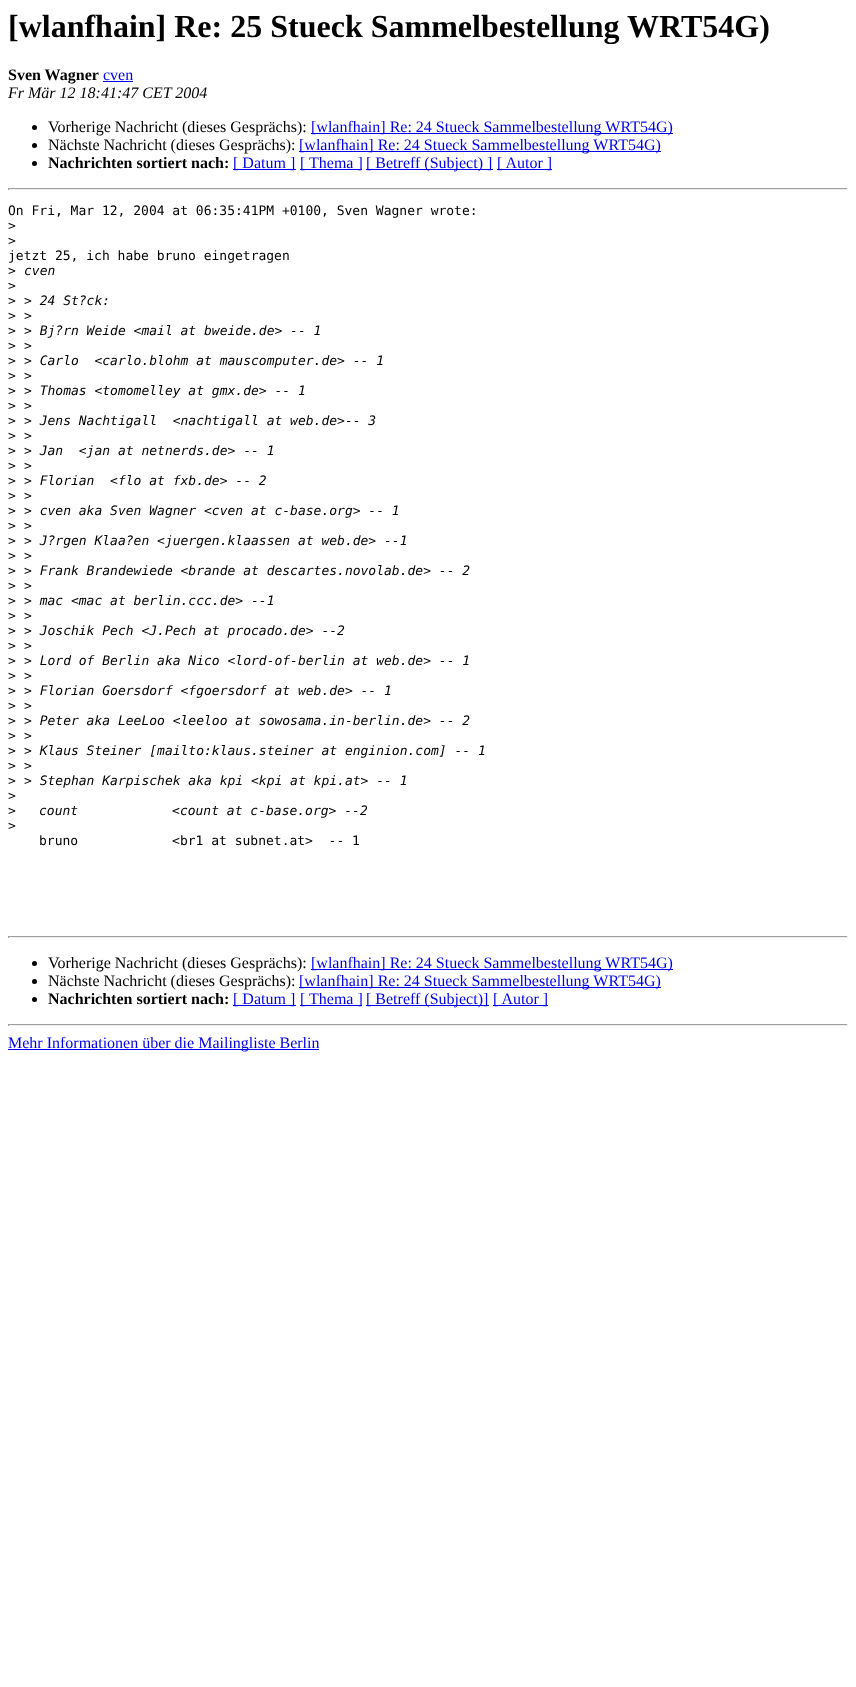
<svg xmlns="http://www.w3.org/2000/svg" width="856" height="1687">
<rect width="100%" height="100%" fill="#fff"/>
<text x="8" y="37" style="font-family:Liberation Serif;font-size:32px;font-weight:bold;fill:#000">[wlanfhain] Re: 25 Stueck Sammelbestellung WRT54G)</text>
<text x="8" y="80" style="font-family:Liberation Serif;font-size:16px;font-weight:bold;fill:#000">Sven Wagner</text>
<text x="103" y="80" style="font-family:Liberation Serif;font-size:16px;fill:#00e">cven</text>
<rect x="103" y="81" width="30" height="1" fill="#00e"/>
<text x="8" y="98" style="font-family:Liberation Serif;font-size:16px;font-style:italic;fill:#000">Fr Mär 12 18:41:47 CET 2004</text>
<circle cx="34.5" cy="127.5" r="2.5" fill="#000"/>
<text x="48" y="132" style="font-family:Liberation Serif;font-size:16px;fill:#000">Vorherige Nachricht (dieses Gesprächs):</text>
<rect x="311" y="133" width="362" height="1" fill="#00e"/>
<text x="311" y="132" style="font-family:Liberation Serif;font-size:16px;fill:#00e">[wlanfhain] Re: 24 Stueck Sammelbestellung WRT54G)</text>
<circle cx="34.5" cy="145.5" r="2.5" fill="#000"/>
<text x="48" y="150" style="font-family:Liberation Serif;font-size:16px;fill:#000">Nächste Nachricht (dieses Gesprächs):</text>
<rect x="299" y="151" width="362" height="1" fill="#00e"/>
<text x="299" y="150" style="font-family:Liberation Serif;font-size:16px;fill:#00e">[wlanfhain] Re: 24 Stueck Sammelbestellung WRT54G)</text>
<circle cx="34.5" cy="163.5" r="2.5" fill="#000"/>
<text x="48" y="168" style="font-family:Liberation Serif;font-size:16px;font-weight:bold;fill:#000">Nachrichten sortiert nach:</text>
<rect x="233" y="169" width="63" height="1" fill="#00e"/>
<text x="233" y="168" style="font-family:Liberation Serif;font-size:16px;fill:#00e">[ Datum ]</text>
<rect x="300" y="169" width="62" height="1" fill="#00e"/>
<text x="300" y="168" style="font-family:Liberation Serif;font-size:16px;fill:#00e">[ Thema ]</text>
<rect x="366" y="169" width="127" height="1" fill="#00e"/>
<text x="366" y="168" style="font-family:Liberation Serif;font-size:16px;fill:#00e">[ Betreff (Subject) ]</text>
<rect x="497" y="169" width="55" height="1" fill="#00e"/>
<text x="497" y="168" style="font-family:Liberation Serif;font-size:16px;fill:#00e">[ Autor ]</text>
<rect x="8" y="188" width="840" height="1" fill="#9f9f9f"/>
<rect x="847" y="188" width="1" height="2" fill="#eee"/>
<rect x="8" y="189" width="840" height="1" fill="#eee"/>
<rect x="8" y="188" width="1" height="2" fill="#9f9f9f"/>
<text x="8" y="215" style="font-family:DejaVu Sans Mono;font-size:13px;fill:#000">On Fri, Mar 12, 2004 at 06:35:41PM +0100, Sven Wagner wrote:</text>
<text x="8" y="230" style="font-family:DejaVu Sans Mono;font-size:13px;fill:#000">&gt;</text>
<text x="8" y="245" style="font-family:DejaVu Sans Mono;font-size:13px;fill:#000">&gt;</text>
<text x="8" y="260" style="font-family:DejaVu Sans Mono;font-size:13px;fill:#000">jetzt 25, ich habe bruno eingetragen</text>
<text x="8" y="275" style="font-family:DejaVu Sans Mono;font-size:13px;fill:#000">&gt;</text>
<text x="24" y="275" style="font-family:DejaVu Sans Mono;font-size:13px;font-style:italic;fill:#000">cven</text>
<text x="8" y="290" style="font-family:DejaVu Sans Mono;font-size:13px;fill:#000">&gt;</text>
<text x="8" y="305" style="font-family:DejaVu Sans Mono;font-size:13px;fill:#000">&gt;</text>
<text x="24" y="305" style="font-family:DejaVu Sans Mono;font-size:13px;font-style:italic;fill:#000">&gt; 24 St?ck:</text>
<text x="8" y="320" style="font-family:DejaVu Sans Mono;font-size:13px;fill:#000">&gt;</text>
<text x="24" y="320" style="font-family:DejaVu Sans Mono;font-size:13px;font-style:italic;fill:#000">&gt;</text>
<text x="8" y="335" style="font-family:DejaVu Sans Mono;font-size:13px;fill:#000">&gt;</text>
<text x="24" y="335" style="font-family:DejaVu Sans Mono;font-size:13px;font-style:italic;fill:#000">&gt; Bj?rn Weide &lt;mail at bweide.de&gt; -- 1</text>
<text x="8" y="350" style="font-family:DejaVu Sans Mono;font-size:13px;fill:#000">&gt;</text>
<text x="24" y="350" style="font-family:DejaVu Sans Mono;font-size:13px;font-style:italic;fill:#000">&gt;</text>
<text x="8" y="365" style="font-family:DejaVu Sans Mono;font-size:13px;fill:#000">&gt;</text>
<text x="24" y="365" style="font-family:DejaVu Sans Mono;font-size:13px;font-style:italic;fill:#000" xml:space="preserve">&gt; Carlo  &lt;carlo.blohm at mauscomputer.de&gt; -- 1</text>
<text x="8" y="380" style="font-family:DejaVu Sans Mono;font-size:13px;fill:#000">&gt;</text>
<text x="24" y="380" style="font-family:DejaVu Sans Mono;font-size:13px;font-style:italic;fill:#000">&gt;</text>
<text x="8" y="395" style="font-family:DejaVu Sans Mono;font-size:13px;fill:#000">&gt;</text>
<text x="24" y="395" style="font-family:DejaVu Sans Mono;font-size:13px;font-style:italic;fill:#000">&gt; Thomas &lt;tomomelley at gmx.de&gt; -- 1</text>
<text x="8" y="410" style="font-family:DejaVu Sans Mono;font-size:13px;fill:#000">&gt;</text>
<text x="24" y="410" style="font-family:DejaVu Sans Mono;font-size:13px;font-style:italic;fill:#000">&gt;</text>
<text x="8" y="425" style="font-family:DejaVu Sans Mono;font-size:13px;fill:#000">&gt;</text>
<text x="24" y="425" style="font-family:DejaVu Sans Mono;font-size:13px;font-style:italic;fill:#000" xml:space="preserve">&gt; Jens Nachtigall  &lt;nachtigall at web.de&gt;-- 3</text>
<text x="8" y="440" style="font-family:DejaVu Sans Mono;font-size:13px;fill:#000">&gt;</text>
<text x="24" y="440" style="font-family:DejaVu Sans Mono;font-size:13px;font-style:italic;fill:#000">&gt;</text>
<text x="8" y="455" style="font-family:DejaVu Sans Mono;font-size:13px;fill:#000">&gt;</text>
<text x="24" y="455" style="font-family:DejaVu Sans Mono;font-size:13px;font-style:italic;fill:#000" xml:space="preserve">&gt; Jan  &lt;jan at netnerds.de&gt; -- 1</text>
<text x="8" y="470" style="font-family:DejaVu Sans Mono;font-size:13px;fill:#000">&gt;</text>
<text x="24" y="470" style="font-family:DejaVu Sans Mono;font-size:13px;font-style:italic;fill:#000">&gt;</text>
<text x="8" y="485" style="font-family:DejaVu Sans Mono;font-size:13px;fill:#000">&gt;</text>
<text x="24" y="485" style="font-family:DejaVu Sans Mono;font-size:13px;font-style:italic;fill:#000" xml:space="preserve">&gt; Florian  &lt;flo at fxb.de&gt; -- 2</text>
<text x="8" y="500" style="font-family:DejaVu Sans Mono;font-size:13px;fill:#000">&gt;</text>
<text x="24" y="500" style="font-family:DejaVu Sans Mono;font-size:13px;font-style:italic;fill:#000">&gt;</text>
<text x="8" y="515" style="font-family:DejaVu Sans Mono;font-size:13px;fill:#000">&gt;</text>
<text x="24" y="515" style="font-family:DejaVu Sans Mono;font-size:13px;font-style:italic;fill:#000">&gt; cven aka Sven Wagner &lt;cven at c-base.org&gt; -- 1</text>
<text x="8" y="530" style="font-family:DejaVu Sans Mono;font-size:13px;fill:#000">&gt;</text>
<text x="24" y="530" style="font-family:DejaVu Sans Mono;font-size:13px;font-style:italic;fill:#000">&gt;</text>
<text x="8" y="545" style="font-family:DejaVu Sans Mono;font-size:13px;fill:#000">&gt;</text>
<text x="24" y="545" style="font-family:DejaVu Sans Mono;font-size:13px;font-style:italic;fill:#000">&gt; J?rgen Klaa?en &lt;juergen.klaassen at web.de&gt; --1</text>
<text x="8" y="560" style="font-family:DejaVu Sans Mono;font-size:13px;fill:#000">&gt;</text>
<text x="24" y="560" style="font-family:DejaVu Sans Mono;font-size:13px;font-style:italic;fill:#000">&gt;</text>
<text x="8" y="575" style="font-family:DejaVu Sans Mono;font-size:13px;fill:#000">&gt;</text>
<text x="24" y="575" style="font-family:DejaVu Sans Mono;font-size:13px;font-style:italic;fill:#000">&gt; Frank Brandewiede &lt;brande at descartes.novolab.de&gt; -- 2</text>
<text x="8" y="590" style="font-family:DejaVu Sans Mono;font-size:13px;fill:#000">&gt;</text>
<text x="24" y="590" style="font-family:DejaVu Sans Mono;font-size:13px;font-style:italic;fill:#000">&gt;</text>
<text x="8" y="605" style="font-family:DejaVu Sans Mono;font-size:13px;fill:#000">&gt;</text>
<text x="24" y="605" style="font-family:DejaVu Sans Mono;font-size:13px;font-style:italic;fill:#000">&gt; mac &lt;mac at berlin.ccc.de&gt; --1</text>
<text x="8" y="620" style="font-family:DejaVu Sans Mono;font-size:13px;fill:#000">&gt;</text>
<text x="24" y="620" style="font-family:DejaVu Sans Mono;font-size:13px;font-style:italic;fill:#000">&gt;</text>
<text x="8" y="635" style="font-family:DejaVu Sans Mono;font-size:13px;fill:#000">&gt;</text>
<text x="24" y="635" style="font-family:DejaVu Sans Mono;font-size:13px;font-style:italic;fill:#000">&gt; Joschik Pech &lt;J.Pech at procado.de&gt; --2</text>
<text x="8" y="650" style="font-family:DejaVu Sans Mono;font-size:13px;fill:#000">&gt;</text>
<text x="24" y="650" style="font-family:DejaVu Sans Mono;font-size:13px;font-style:italic;fill:#000">&gt;</text>
<text x="8" y="665" style="font-family:DejaVu Sans Mono;font-size:13px;fill:#000">&gt;</text>
<text x="24" y="665" style="font-family:DejaVu Sans Mono;font-size:13px;font-style:italic;fill:#000">&gt; Lord of Berlin aka Nico &lt;lord-of-berlin at web.de&gt; -- 1</text>
<text x="8" y="680" style="font-family:DejaVu Sans Mono;font-size:13px;fill:#000">&gt;</text>
<text x="24" y="680" style="font-family:DejaVu Sans Mono;font-size:13px;font-style:italic;fill:#000">&gt;</text>
<text x="8" y="695" style="font-family:DejaVu Sans Mono;font-size:13px;fill:#000">&gt;</text>
<text x="24" y="695" style="font-family:DejaVu Sans Mono;font-size:13px;font-style:italic;fill:#000">&gt; Florian Goersdorf &lt;fgoersdorf at web.de&gt; -- 1</text>
<text x="8" y="710" style="font-family:DejaVu Sans Mono;font-size:13px;fill:#000">&gt;</text>
<text x="24" y="710" style="font-family:DejaVu Sans Mono;font-size:13px;font-style:italic;fill:#000">&gt;</text>
<text x="8" y="725" style="font-family:DejaVu Sans Mono;font-size:13px;fill:#000">&gt;</text>
<text x="24" y="725" style="font-family:DejaVu Sans Mono;font-size:13px;font-style:italic;fill:#000">&gt; Peter aka LeeLoo &lt;leeloo at sowosama.in-berlin.de&gt; -- 2</text>
<text x="8" y="740" style="font-family:DejaVu Sans Mono;font-size:13px;fill:#000">&gt;</text>
<text x="24" y="740" style="font-family:DejaVu Sans Mono;font-size:13px;font-style:italic;fill:#000">&gt;</text>
<text x="8" y="755" style="font-family:DejaVu Sans Mono;font-size:13px;fill:#000">&gt;</text>
<text x="24" y="755" style="font-family:DejaVu Sans Mono;font-size:13px;font-style:italic;fill:#000">&gt; Klaus Steiner [mailto:klaus.steiner at enginion.com] -- 1</text>
<text x="8" y="770" style="font-family:DejaVu Sans Mono;font-size:13px;fill:#000">&gt;</text>
<text x="24" y="770" style="font-family:DejaVu Sans Mono;font-size:13px;font-style:italic;fill:#000">&gt;</text>
<text x="8" y="785" style="font-family:DejaVu Sans Mono;font-size:13px;fill:#000">&gt;</text>
<text x="24" y="785" style="font-family:DejaVu Sans Mono;font-size:13px;font-style:italic;fill:#000">&gt; Stephan Karpischek aka kpi &lt;kpi at kpi.at&gt; -- 1</text>
<text x="8" y="800" style="font-family:DejaVu Sans Mono;font-size:13px;fill:#000">&gt;</text>
<text x="8" y="815" style="font-family:DejaVu Sans Mono;font-size:13px;fill:#000">&gt;</text>
<text x="39" y="815" style="font-family:DejaVu Sans Mono;font-size:13px;font-style:italic;fill:#000" xml:space="preserve">count            &lt;count at c-base.org&gt; --2</text>
<text x="8" y="830" style="font-family:DejaVu Sans Mono;font-size:13px;fill:#000">&gt;</text>
<text x="39" y="845" style="font-family:DejaVu Sans Mono;font-size:13px;fill:#000" xml:space="preserve">bruno            &lt;br1 at subnet.at&gt;  -- 1</text>
<rect x="8" y="936" width="840" height="1" fill="#9f9f9f"/>
<rect x="847" y="936" width="1" height="2" fill="#eee"/>
<rect x="8" y="937" width="840" height="1" fill="#eee"/>
<rect x="8" y="936" width="1" height="2" fill="#9f9f9f"/>
<circle cx="34.5" cy="963.5" r="2.5" fill="#000"/>
<text x="48" y="968" style="font-family:Liberation Serif;font-size:16px;fill:#000">Vorherige Nachricht (dieses Gesprächs):</text>
<rect x="311" y="969" width="362" height="1" fill="#00e"/>
<text x="311" y="968" style="font-family:Liberation Serif;font-size:16px;fill:#00e">[wlanfhain] Re: 24 Stueck Sammelbestellung WRT54G)</text>
<circle cx="34.5" cy="981.5" r="2.5" fill="#000"/>
<text x="48" y="986" style="font-family:Liberation Serif;font-size:16px;fill:#000">Nächste Nachricht (dieses Gesprächs):</text>
<rect x="299" y="987" width="362" height="1" fill="#00e"/>
<text x="299" y="986" style="font-family:Liberation Serif;font-size:16px;fill:#00e">[wlanfhain] Re: 24 Stueck Sammelbestellung WRT54G)</text>
<circle cx="34.5" cy="999.5" r="2.5" fill="#000"/>
<text x="48" y="1004" style="font-family:Liberation Serif;font-size:16px;font-weight:bold;fill:#000">Nachrichten sortiert nach:</text>
<rect x="233" y="1005" width="63" height="1" fill="#00e"/>
<text x="233" y="1004" style="font-family:Liberation Serif;font-size:16px;fill:#00e">[ Datum ]</text>
<rect x="300" y="1005" width="62" height="1" fill="#00e"/>
<text x="300" y="1004" style="font-family:Liberation Serif;font-size:16px;fill:#00e">[ Thema ]</text>
<rect x="366" y="1005" width="123" height="1" fill="#00e"/>
<text x="366" y="1004" style="font-family:Liberation Serif;font-size:16px;fill:#00e">[ Betreff (Subject)]</text>
<rect x="493" y="1005" width="55" height="1" fill="#00e"/>
<text x="493" y="1004" style="font-family:Liberation Serif;font-size:16px;fill:#00e">[ Autor ]</text>
<rect x="8" y="1024" width="840" height="1" fill="#9f9f9f"/>
<rect x="847" y="1024" width="1" height="2" fill="#eee"/>
<rect x="8" y="1025" width="840" height="1" fill="#eee"/>
<rect x="8" y="1024" width="1" height="2" fill="#9f9f9f"/>
<rect x="8" y="1049" width="311" height="1" fill="#00e"/>
<text x="8" y="1048" style="font-family:Liberation Serif;font-size:16px;fill:#00e">Mehr Informationen über die Mailingliste Berlin</text>
</svg>
